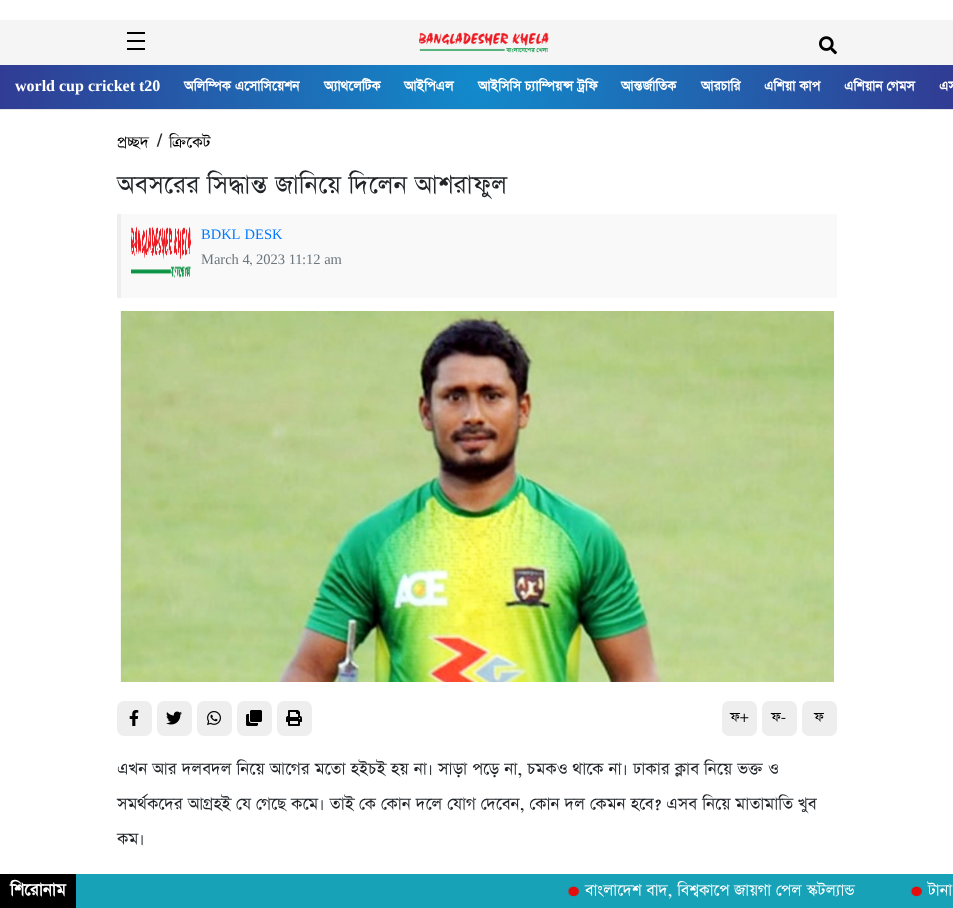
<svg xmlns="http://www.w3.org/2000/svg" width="953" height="908">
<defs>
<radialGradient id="g1" gradientUnits="userSpaceOnUse" cx="474" cy="87" r="495"><stop offset="0" stop-color="#128acb"/><stop offset="1" stop-color="#323991"/></radialGradient>
</defs>
<rect width="100%" height="100%" fill="#fff"/>
<rect y="20" width="953" height="45" fill="#f5f5f5"/>
<rect x="127" y="32" width="18" height="2" fill="#000"/>
<rect x="127" y="40" width="18" height="2" fill="#000"/>
<rect x="127" y="48" width="18" height="2" fill="#000"/>
<image x="419" y="32" width="130" height="21" href="media/1.png"/>
<image x="819" y="36" width="18" height="19" href="media/2.png"/>
<rect y="109" width="953" height="1" fill="#e6e6e6"/>
<rect y="65" width="953" height="44" fill="url(#g1)"/>
<text x="15" y="91" style="font-family:Liberation Serif;font-size:16px;font-weight:bold;fill:#fff">world cup cricket t20</text>
<text x="184" y="91" style="font-family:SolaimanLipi;font-size:16px;font-weight:bold;fill:#fff">অলিম্পিক এসোসিয়েশন</text>
<text x="324" y="91" style="font-family:SolaimanLipi;font-size:16px;font-weight:bold;fill:#fff">অ্যাথলেটিক</text>
<text x="404" y="91" style="font-family:SolaimanLipi;font-size:16px;font-weight:bold;fill:#fff">আইপিএল</text>
<text x="478" y="91" style="font-family:SolaimanLipi;font-size:16px;font-weight:bold;fill:#fff">আইসিসি চ্যাম্পিয়ন্স ট্রফি</text>
<text x="621" y="91" style="font-family:SolaimanLipi;font-size:16px;font-weight:bold;fill:#fff">আন্তর্জাতিক</text>
<text x="701" y="91" style="font-family:SolaimanLipi;font-size:16px;font-weight:bold;fill:#fff">আরচারি</text>
<text x="764" y="91" style="font-family:SolaimanLipi;font-size:16px;font-weight:bold;fill:#fff">এশিয়া কাপ</text>
<text x="844" y="91" style="font-family:SolaimanLipi;font-size:16px;font-weight:bold;fill:#fff">এশিয়ান গেমস</text>
<text x="939" y="91" style="font-family:SolaimanLipi;font-size:16px;font-weight:bold;fill:#fff">এস</text>
<text x="117" y="148" style="font-family:SolaimanLipi;font-size:19px;fill:#000">প্রচ্ছদ</text>
<text x="157" y="145" style="font-family:SolaimanLipi;font-size:16px;font-weight:bold;fill:#212529">/</text>
<text x="169" y="148" style="font-family:SolaimanLipi;font-size:19px;fill:#000">ক্রিকেট</text>
<text x="117" y="194" style="font-family:SolaimanLipi;font-size:30px;fill:#212529">অবসরের সিদ্ধান্ত জানিয়ে দিলেন আশরাফুল</text>
<rect x="121" y="214" width="716" height="84" fill="#f9f9f9"/>
<rect x="117" y="214" width="4" height="84" fill="#eee"/>
<image x="131" y="226" width="60" height="52" href="media/3.png"/>
<text x="201" y="239" word-spacing="1" style="font-family:Liberation Serif;font-size:14.5px;fill:#007bff">BDKL DESK</text>
<text x="201" y="264" style="font-family:Liberation Serif;font-size:14.5px;fill:#6c757d">March 4</text>
<text x="249" y="264" style="font-family:SolaimanLipi;font-size:14.5px;fill:#6c757d">,</text>
<text x="256" y="264" style="font-family:Liberation Serif;font-size:14.5px;fill:#6c757d">2023 11</text>
<text x="302" y="264" style="font-family:SolaimanLipi;font-size:14.5px;fill:#6c757d">:</text>
<text x="306" y="264" style="font-family:Liberation Serif;font-size:14.5px;fill:#6c757d">12 am</text>
<image x="120" y="311" width="714" height="371" href="media/4.png"/>
<rect x="117" y="701" width="35" height="35" rx="7" fill="#eee"/>
<image x="129" y="710" width="10" height="16" href="media/5.png"/>
<rect x="157" y="701" width="35" height="35" rx="7" fill="#eee"/>
<image x="166" y="711" width="16" height="14" href="media/6.png"/>
<rect x="197" y="701" width="35" height="35" rx="7" fill="#eee"/>
<image x="207" y="711" width="14" height="14" href="media/7.png"/>
<rect x="237" y="701" width="35" height="35" rx="7" fill="#eee"/>
<image x="246" y="710" width="16" height="16" href="media/8.png"/>
<rect x="277" y="701" width="35" height="35" rx="7" fill="#eee"/>
<image x="286" y="710" width="16" height="16" href="media/9.png"/>
<rect x="722" y="701" width="35" height="35" rx="7" fill="#eee"/>
<text x="730" y="722" style="font-family:SolaimanLipi;font-size:16px;fill:#000">ফ+</text>
<rect x="762" y="701" width="35" height="35" rx="7" fill="#eee"/>
<text x="771" y="722" style="font-family:SolaimanLipi;font-size:16px;fill:#000">ফ-</text>
<rect x="802" y="701" width="35" height="35" rx="7" fill="#eee"/>
<text x="814" y="722" style="font-family:SolaimanLipi;font-size:16px;fill:#000">ফ</text>
<text x="117" y="775" style="font-family:SolaimanLipi;font-size:20px;fill:#212529">এখন আর দলবদল নিয়ে আগের মতো হইচই হয় না। সাড়া পড়ে না, চমকও থাকে না। ঢাকার ক্লাব নিয়ে ভক্ত ও</text>
<text x="117" y="810" style="font-family:SolaimanLipi;font-size:20px;fill:#212529">সমর্থকদের আগ্রহই যে গেছে কমে। তাই কে কোন দলে যোগ দেবেন, কোন দল কেমন হবে? এসব নিয়ে মাতামাতি খুব</text>
<text x="117" y="845" style="font-family:SolaimanLipi;font-size:20px;fill:#212529">কম।</text>
<rect x="76" y="874" width="877" height="34" fill="#17a2b8"/>
<rect y="874" width="76" height="34" fill="#000"/>
<text x="10" y="896" style="font-family:SolaimanLipi;font-size:20px;font-weight:bold;fill:#fff">শিরোনাম</text>
<image x="568" y="886" width="11" height="11" href="media/10.png"/>
<text x="585" y="896" style="font-family:SolaimanLipi;font-size:19px;fill:#fff">বাংলাদেশ বাদ, বিশ্বকাপে জায়গা পেল স্কটল্যান্ড</text>
<image x="910" y="886" width="12" height="11" href="media/11.png"/>
<text x="928" y="896" style="font-family:SolaimanLipi;font-size:19px;fill:#fff">টানা</text>
</svg>
